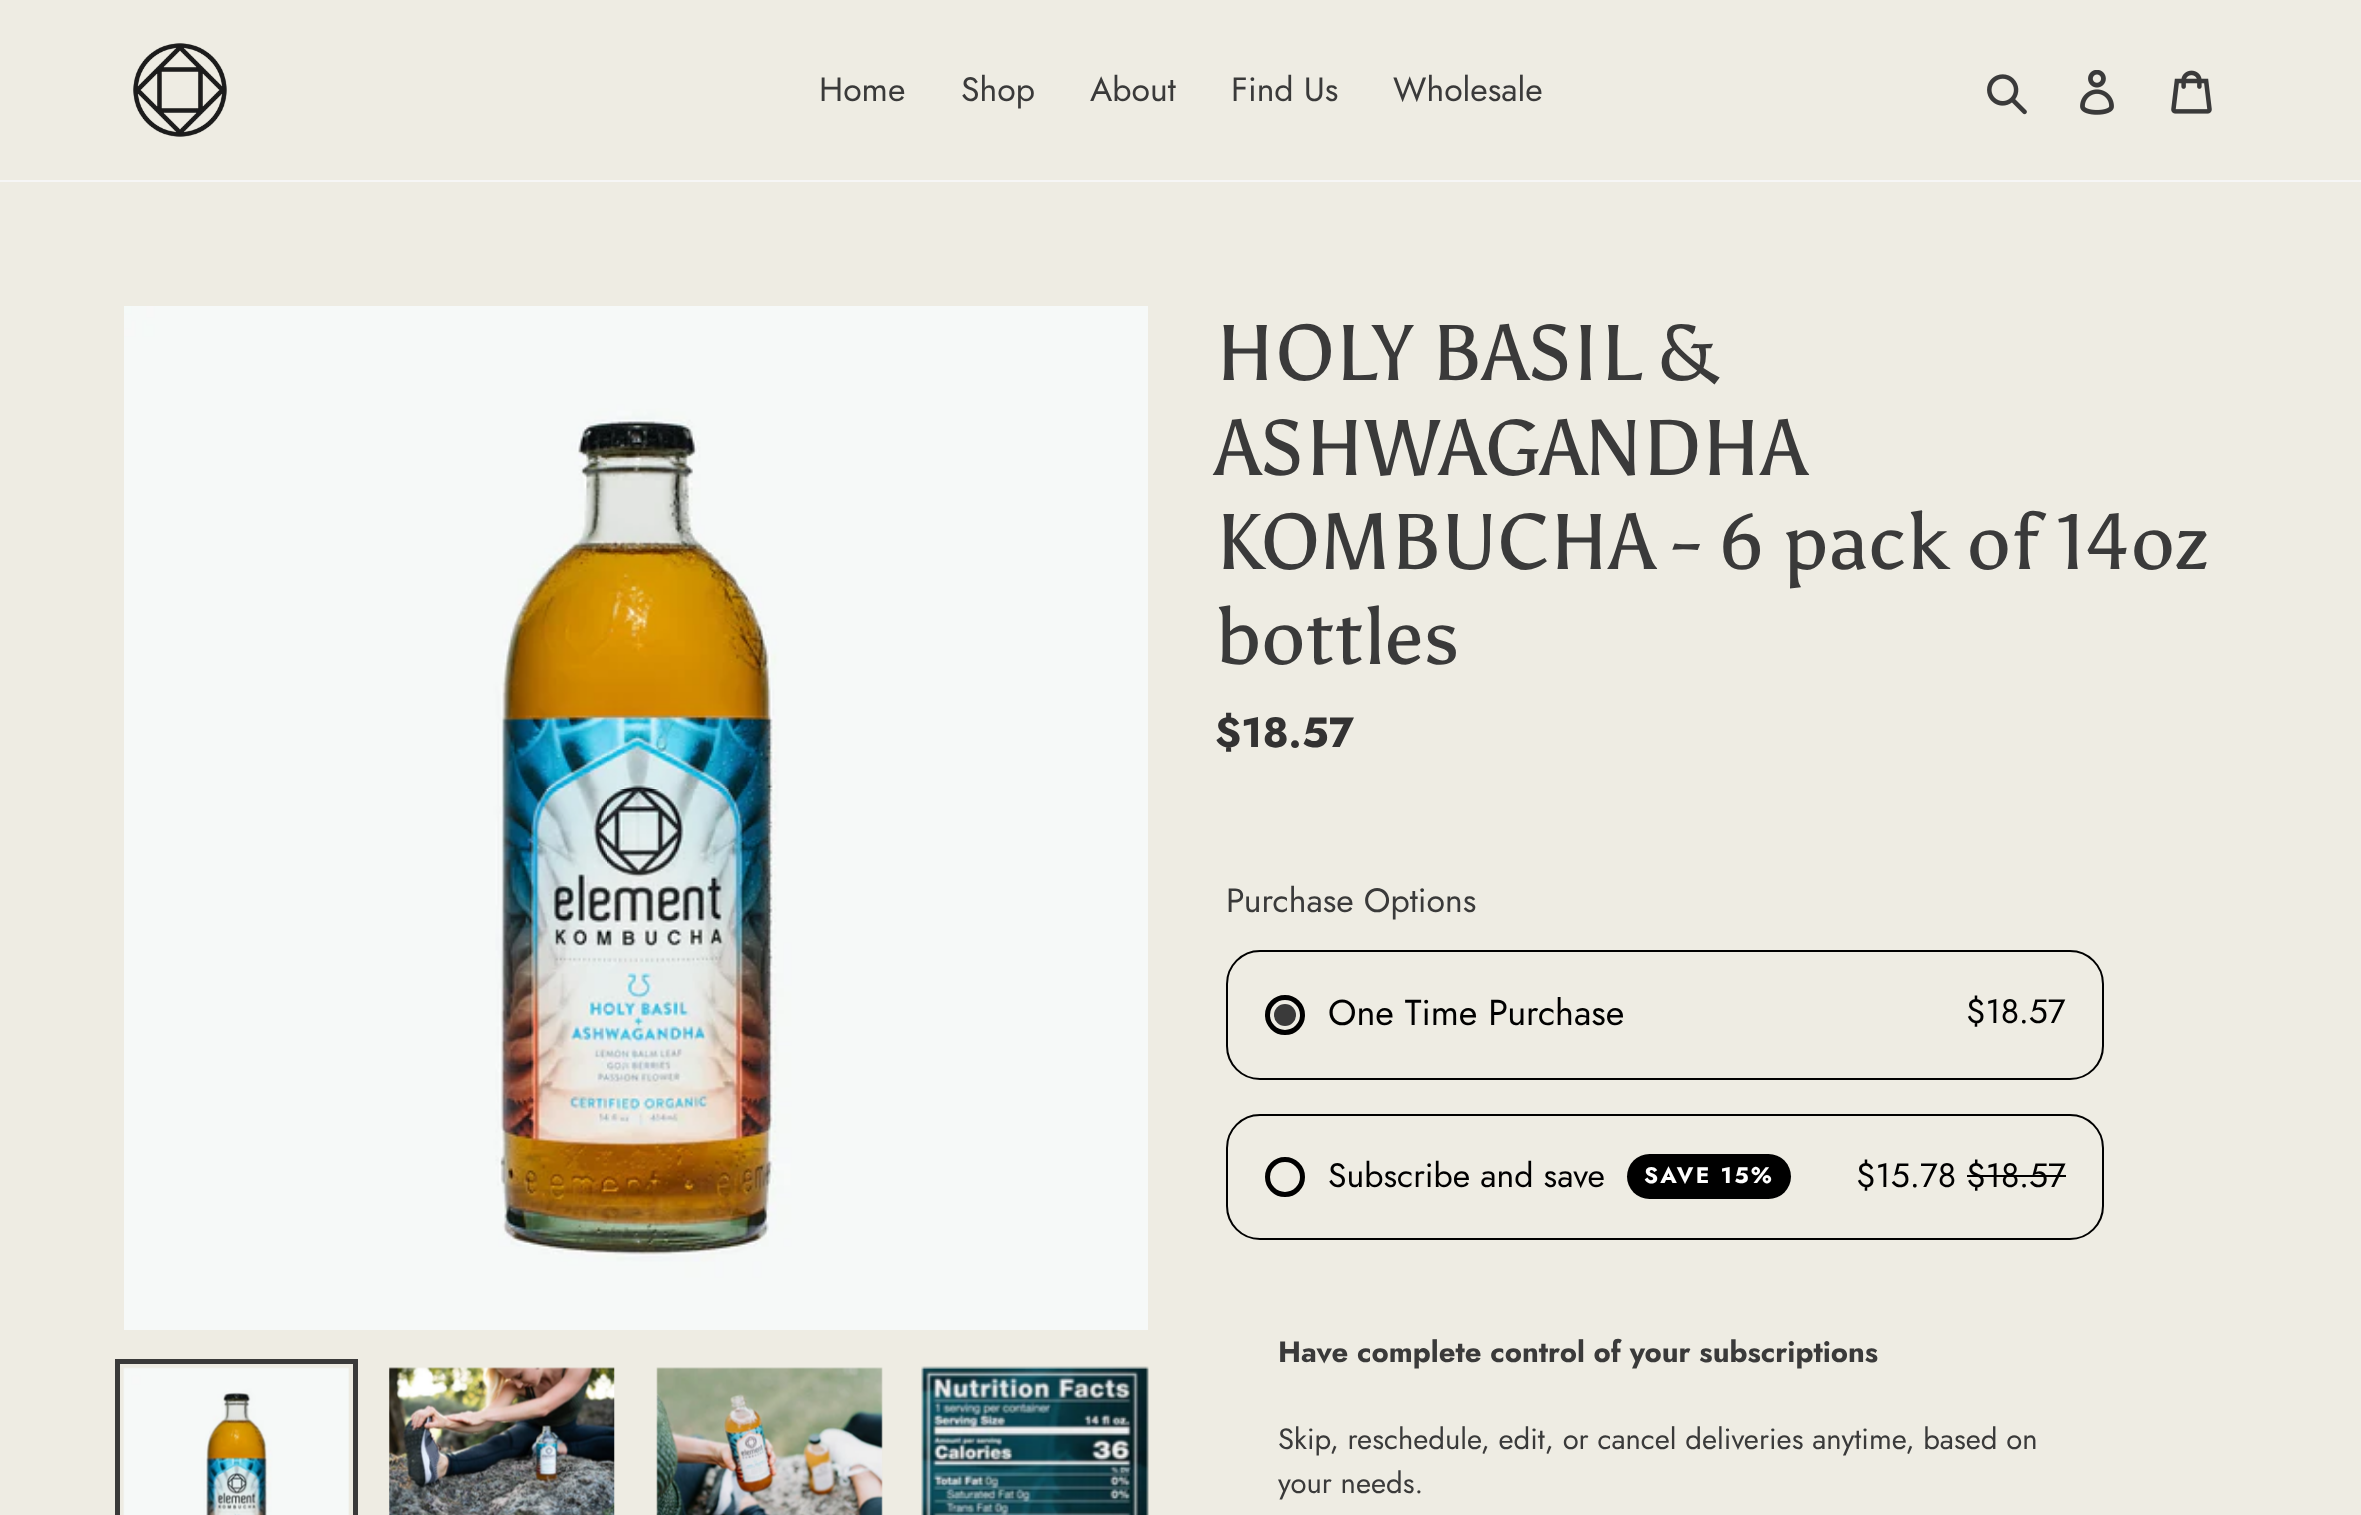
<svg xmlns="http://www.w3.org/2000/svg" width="2361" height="1515">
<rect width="100%" height="100%" fill="#eeece3"/>
<rect y="180" width="2361" height="2" fill="#f6f6f6"/>
<image x="133" y="43" width="94" height="94" href="media/1.png"/>
<text x="819" y="101" style="font-family:Jost;font-size:33.75px;fill:#3a3a3a">Home</text>
<text x="961" y="101" style="font-family:Jost;font-size:33.75px;fill:#3a3a3a">Shop</text>
<text x="1090" y="101" style="font-family:Jost;font-size:33.75px;fill:#3a3a3a">About</text>
<text x="1231" y="101" style="font-family:Jost;font-size:33.75px;fill:#3a3a3a">Find Us</text>
<text x="1393" y="101" style="font-family:Jost;font-size:33.75px;fill:#3a3a3a">Wholesale</text>
<image x="1987" y="74" width="40" height="41" href="media/2.png"/>
<image x="2080" y="70" width="34" height="45" href="media/3.png"/>
<image x="2171" y="70" width="41" height="44" href="media/4.png"/>
<image x="124" y="306" width="1024" height="1024" href="media/5.png"/>
<rect x="117.5" y="1361.5" width="238" height="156" fill="none" stroke="#3a3a3a" stroke-width="5"/>
<image x="123" y="1367" width="226" height="148" href="media/6.png"/>
<image x="389" y="1367" width="226" height="148" href="media/7.png"/>
<image x="656" y="1367" width="227" height="148" href="media/8.png"/>
<image x="921" y="1366" width="228" height="149" href="media/9.png"/>
<text x="1215" y="380" style="font-family:Asul;font-size:78.75px;fill:#3a3a3a">HOLY BASIL &amp;</text>
<text x="1215" y="475" style="font-family:Asul;font-size:78.75px;fill:#3a3a3a">ASHWAGANDHA</text>
<text x="1215" y="569" style="font-family:Asul;font-size:78.75px;fill:#3a3a3a">KOMBUCHA - 6 pack of 14oz</text>
<text x="1215" y="664" style="font-family:Asul;font-size:78.75px;fill:#3a3a3a">bottles</text>
<text x="1215" y="747" style="font-family:Jost;font-size:42px;font-weight:bold;fill:#333232">$18.57</text>
<text x="1226" y="912" style="font-family:Jost;font-size:33.75px;fill:#3a3a3a">Purchase Options</text>
<rect x="1227" y="951" width="876" height="128" rx="33" fill="none" stroke="#000" stroke-width="2"/>
<circle cx="1285" cy="1015" r="17.5" fill="none" stroke="#000" stroke-width="5"/>
<circle cx="1285" cy="1015" r="11" fill="#3a3a3a"/>
<text x="1328" y="1025" style="font-family:Jost;font-size:36px;fill:#000">One Time Purchase</text>
<text x="1966" y="1023" style="font-family:Jost;font-size:33.75px;fill:#000">$18.57</text>
<rect x="1227" y="1115" width="876" height="124" rx="33" fill="none" stroke="#000" stroke-width="2"/>
<circle cx="1285" cy="1177" r="17.5" fill="none" stroke="#000" stroke-width="5"/>
<text x="1328" y="1187" style="font-family:Jost;font-size:33.75px;fill:#000">Subscribe and save</text>
<rect x="1627" y="1154" width="164" height="45" rx="22.5" fill="#000"/>
<text x="1644" y="1183" style="font-family:Jost;font-size:22.5px;font-weight:bold;letter-spacing:2.25px;fill:#fff">SAVE 15%</text>
<text x="1856" y="1187" style="font-family:Jost;font-size:33.75px;fill:#000">$15.78 $18.57</text>
<rect x="1967" y="1175" width="99" height="2" fill="#000"/>
<text x="1278" y="1362" style="font-family:Jost;font-size:29.25px;font-weight:bold;fill:#3a3a3a">Have complete control of your subscriptions</text>
<text x="1278" y="1449" style="font-family:Jost;font-size:29.25px;fill:#3a3a3a">Skip, reschedule, edit, or cancel deliveries anytime, based on</text>
<text x="1278" y="1493" style="font-family:Jost;font-size:29.25px;fill:#3a3a3a">your needs.</text>
</svg>
